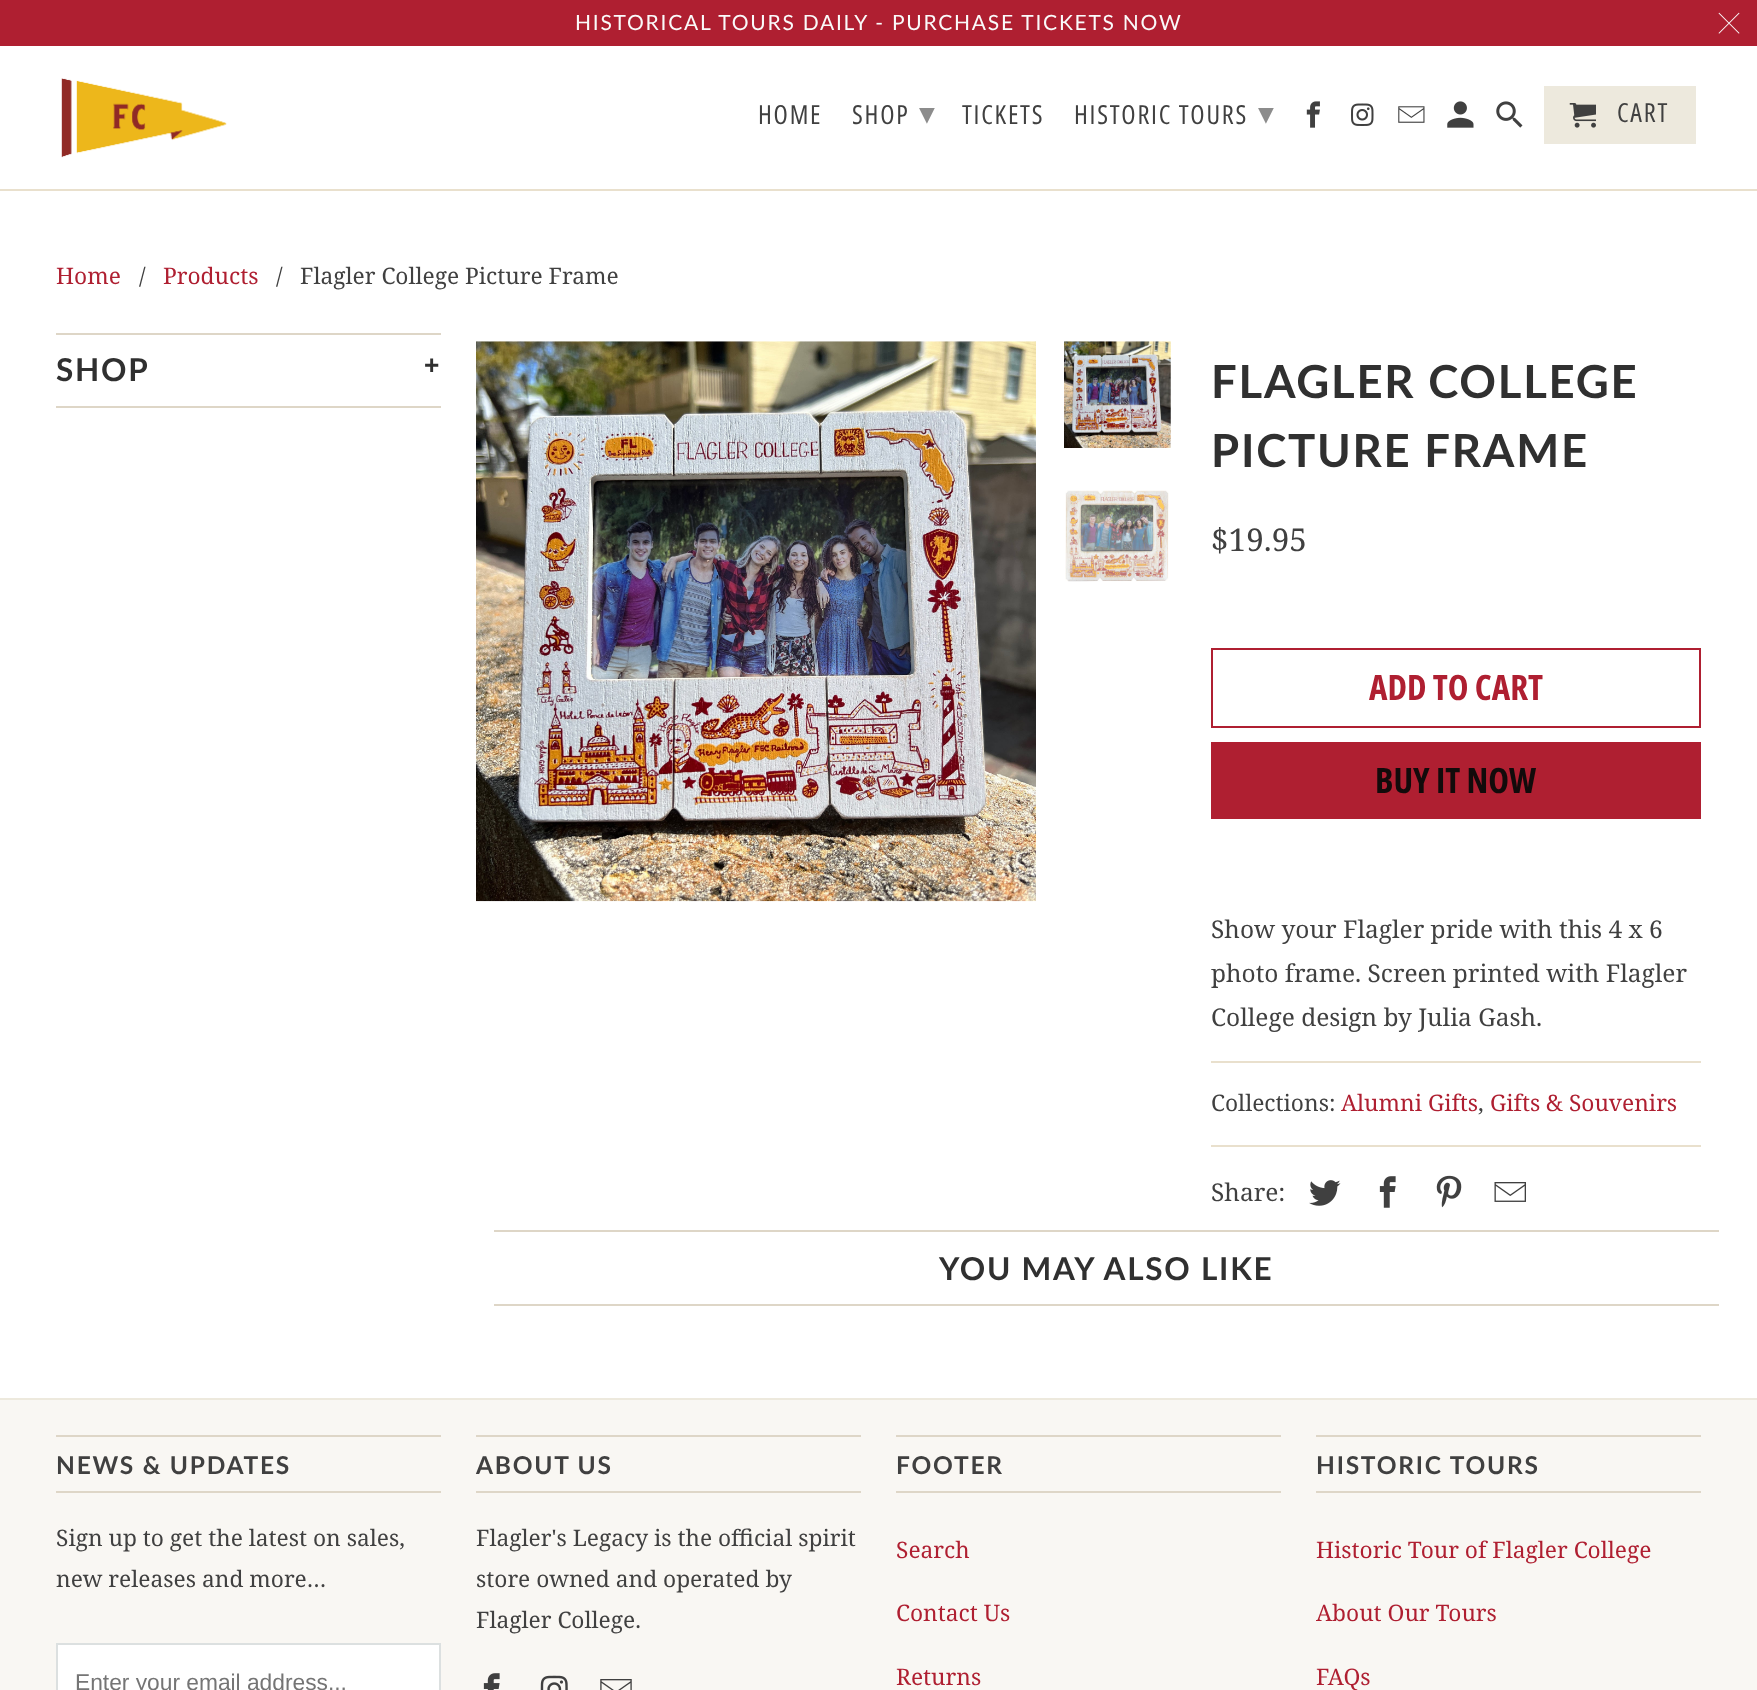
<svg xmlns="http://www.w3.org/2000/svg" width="1757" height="1690">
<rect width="100%" height="100%" fill="#fff"/>
<rect y="189" width="1757" height="2" fill="#e9e0cd"/>
<rect width="1757" height="46" fill="#af1f31"/>
<text x="575" y="30" style="font-family:Lato;font-size:21px;letter-spacing:1.75px;fill:#fafafa">HISTORICAL TOURS DAILY - PURCHASE TICKETS NOW</text>
<image x="1718" y="12" width="22" height="22" href="media/1.png"/>
<image x="61" y="78" width="166" height="80" href="media/2.png"/>
<text x="758" y="124" style="font-family:Open Sans Condensed;font-size:26.25px;letter-spacing:1.75px;fill:#404040">HOME</text>
<text x="852" y="124" style="font-family:Open Sans Condensed;font-size:26.25px;letter-spacing:1.75px;fill:#404040">SHOP</text>
<text x="919" y="124" style="font-family:DejaVu Sans;font-size:31.5px;letter-spacing:1.75px;fill:#8c8c8c">▾</text>
<text x="962" y="124" style="font-family:Open Sans Condensed;font-size:26.25px;letter-spacing:1.75px;fill:#404040">TICKETS</text>
<text x="1074" y="124" style="font-family:Open Sans Condensed;font-size:26.25px;letter-spacing:1.75px;fill:#404040">HISTORIC TOURS</text>
<text x="1258" y="124" style="font-family:DejaVu Sans;font-size:31.5px;letter-spacing:1.75px;fill:#8c8c8c">▾</text>
<image x="1306" y="101" width="14" height="27" href="media/3.png"/>
<image x="1351" y="103" width="23" height="23" href="media/4.png"/>
<image x="1398" y="106" width="27" height="17" href="media/5.png"/>
<image x="1447" y="101" width="27" height="27" href="media/6.png"/>
<image x="1496" y="101" width="27" height="27" href="media/7.png"/>
<rect x="1544" y="86" width="152" height="58" fill="#ede9dd"/>
<image x="1569" y="103" width="27" height="25" href="media/8.png"/>
<text x="1617" y="122" style="font-family:Open Sans Condensed;font-size:26.25px;letter-spacing:1.75px;fill:#404040">CART</text>
<text x="56" y="284" style="font-family:Noto Serif;font-size:22.75px;fill:#af1f31">Home</text>
<text x="139" y="284" style="font-family:Noto Serif;font-size:22.75px;fill:#404040">/</text>
<text x="163" y="284" style="font-family:Noto Serif;font-size:22.75px;fill:#af1f31">Products</text>
<text x="276" y="284" style="font-family:Noto Serif;font-size:22.75px;fill:#404040">/</text>
<text x="300" y="284" style="font-family:Noto Serif;font-size:22.75px;fill:#404040">Flagler College Picture Frame</text>
<rect x="56" y="333" width="385" height="2" fill="#ded6c7"/>
<rect x="56" y="406" width="385" height="2" fill="#ded6c7"/>
<text x="56" y="381" style="font-family:Lato;font-size:31.5px;font-weight:bold;letter-spacing:1.75px;fill:#303030">SHOP</text>
<text x="424" y="374" style="font-family:Liberation Sans;font-size:26.25px;font-weight:bold;letter-spacing:1.75px;fill:#303030">+</text>
<image x="476" y="341" width="560" height="561" href="media/9.png"/>
<image x="1064" y="341" width="107" height="107" href="media/10.png"/>
<image x="1065" y="490" width="104" height="92" href="media/11.png"/>
<text x="1211" y="398" style="font-family:Lato;font-size:45.5px;font-weight:bold;letter-spacing:1.75px;fill:#303030">FLAGLER COLLEGE</text>
<text x="1211" y="467" style="font-family:Lato;font-size:45.5px;font-weight:bold;letter-spacing:1.75px;fill:#303030">PICTURE FRAME</text>
<text x="1211" y="551" style="font-family:Noto Serif;font-size:31.5px;fill:#404040">$19.95</text>
<rect x="1212" y="649" width="488" height="78" fill="none" stroke="#af1f31" stroke-width="2"/>
<text x="1369" y="700" style="font-family:Open Sans Condensed;font-size:35px;font-weight:bold;fill:#af1f31">ADD TO CART</text>
<rect x="1211" y="742" width="490" height="77" fill="#af1f31"/>
<text x="1375" y="793" style="font-family:Open Sans Condensed;font-size:35px;font-weight:bold;fill:#120b0b">BUY IT NOW</text>
<text x="1211" y="938" style="font-family:Noto Serif;font-size:24.5px;fill:#404040">Show your Flagler pride with this 4 x 6</text>
<text x="1211" y="982" style="font-family:Noto Serif;font-size:24.5px;fill:#404040">photo frame. Screen printed with Flagler</text>
<text x="1211" y="1026" style="font-family:Noto Serif;font-size:24.5px;fill:#404040">College design by Julia Gash.</text>
<rect x="1211" y="1061" width="490" height="2" fill="#e9e0cd"/>
<text x="1211" y="1111" style="font-family:Noto Serif;font-size:22.75px;fill:#404040">Collections:</text>
<text x="1341" y="1111" style="font-family:Noto Serif;font-size:22.75px;fill:#af1f31">Alumni Gifts</text>
<text x="1478" y="1111" style="font-family:Noto Serif;font-size:22.75px;fill:#404040">,</text>
<text x="1490" y="1111" style="font-family:Noto Serif;font-size:22.75px;fill:#af1f31">Gifts &amp; Souvenirs</text>
<rect x="1211" y="1145" width="490" height="2" fill="#e9e0cd"/>
<text x="1211" y="1201" style="font-family:Noto Serif;font-size:24.5px;fill:#404040">Share:</text>
<image x="1309" y="1180" width="32" height="26" href="media/12.png"/>
<image x="1379" y="1176" width="17" height="32" href="media/13.png"/>
<image x="1436" y="1175" width="26" height="33" href="media/14.png"/>
<image x="1494" y="1182" width="32" height="20" href="media/15.png"/>
<rect x="494" y="1230" width="1225" height="2" fill="#ded6c7"/>
<rect x="494" y="1304" width="1225" height="2" fill="#ded6c7"/>
<text x="939" y="1280" style="font-family:Lato;font-size:31.5px;font-weight:bold;letter-spacing:1.75px;fill:#303030">YOU MAY ALSO LIKE</text>
<rect y="1400" width="1757" height="290" fill="#f9f7f3"/>
<rect y="1398" width="1757" height="2" fill="#ede9dd"/>
<rect x="56" y="1435" width="385" height="2" fill="#ded6c7"/>
<rect x="56" y="1491" width="385" height="2" fill="#ded6c7"/>
<text x="56" y="1474" style="font-family:Lato;font-size:24.5px;font-weight:bold;letter-spacing:1.75px;fill:#404040">NEWS &amp; UPDATES</text>
<text x="56" y="1546" style="font-family:Noto Serif;font-size:22.75px;fill:#404040">Sign up to get the latest on sales,</text>
<text x="56" y="1587" style="font-family:Noto Serif;font-size:22.75px;fill:#404040">new releases and more…</text>
<rect x="57" y="1644" width="383" height="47" fill="#fff" stroke="#dce0e0" stroke-width="2"/>
<text x="75" y="1690" style="font-family:Liberation Sans;font-size:22.75px;fill:#757575">Enter your email address...</text>
<rect x="476" y="1435" width="385" height="2" fill="#ded6c7"/>
<rect x="476" y="1491" width="385" height="2" fill="#ded6c7"/>
<text x="476" y="1474" style="font-family:Lato;font-size:24.5px;font-weight:bold;letter-spacing:1.75px;fill:#404040">ABOUT US</text>
<text x="476" y="1546" style="font-family:Noto Serif;font-size:22.75px;fill:#404040">Flagler's Legacy is the official spirit</text>
<text x="476" y="1587" style="font-family:Noto Serif;font-size:22.75px;fill:#404040">store owned and operated by</text>
<text x="476" y="1628" style="font-family:Noto Serif;font-size:22.75px;fill:#404040">Flagler College.</text>
<image x="483" y="1673" width="17" height="17" href="media/16.png"/>
<image x="540" y="1675" width="28" height="15" href="media/17.png"/>
<image x="600" y="1679" width="32" height="11" href="media/18.png"/>
<rect x="896" y="1435" width="385" height="2" fill="#ded6c7"/>
<rect x="896" y="1491" width="385" height="2" fill="#ded6c7"/>
<text x="896" y="1474" style="font-family:Lato;font-size:24.5px;font-weight:bold;letter-spacing:1.75px;fill:#404040">FOOTER</text>
<text x="896" y="1558" style="font-family:Noto Serif;font-size:22.75px;fill:#af1f31">Search</text>
<text x="896" y="1621" style="font-family:Noto Serif;font-size:22.75px;fill:#af1f31">Contact Us</text>
<text x="896" y="1685" style="font-family:Noto Serif;font-size:22.75px;fill:#af1f31">Returns</text>
<rect x="1316" y="1435" width="385" height="2" fill="#ded6c7"/>
<rect x="1316" y="1491" width="385" height="2" fill="#ded6c7"/>
<text x="1316" y="1474" style="font-family:Lato;font-size:24.5px;font-weight:bold;letter-spacing:1.75px;fill:#404040">HISTORIC TOURS</text>
<text x="1316" y="1558" style="font-family:Noto Serif;font-size:22.75px;fill:#af1f31">Historic Tour of Flagler College</text>
<text x="1316" y="1621" style="font-family:Noto Serif;font-size:22.75px;fill:#af1f31">About Our Tours</text>
<text x="1316" y="1685" style="font-family:Noto Serif;font-size:22.75px;fill:#af1f31">FAQs</text>
</svg>
